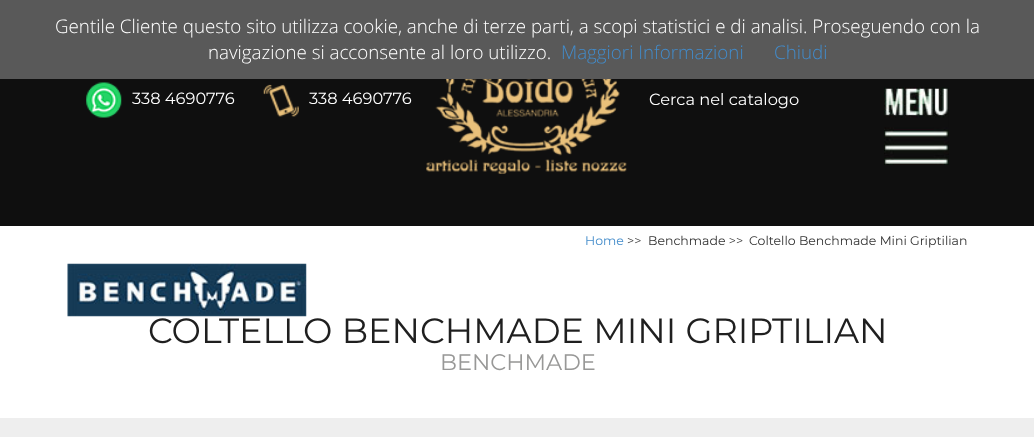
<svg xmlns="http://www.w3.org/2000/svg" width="1034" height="437">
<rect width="100%" height="100%" fill="#fff"/>
<rect width="1034" height="79" fill="#595959"/>
<text x="55" y="33" style="font-family:Open Sans;font-size:18.75px;font-weight:300;fill:#fff">Gentile Cliente questo sito utilizza cookie, anche di terze parti, a scopi statistici e di analisi. Proseguendo con la</text>
<text x="208" y="59" style="font-family:Open Sans;font-size:18.75px;font-weight:300;fill:#fff">navigazione si acconsente al loro utilizzo.</text>
<text x="561" y="59" style="font-family:Open Sans;font-size:18.75px;font-weight:300;fill:#428bca">Maggiori Informazioni</text>
<text x="774" y="59" style="font-family:Open Sans;font-size:18.75px;font-weight:300;fill:#428bca">Chiudi</text>
<rect y="79" width="1034" height="147" fill="#0f0f0f"/>
<image x="86" y="82" width="36" height="36" href="media/1.png"/>
<text x="132" y="104" style="font-family:Montserrat;font-size:16.25px;font-weight:100;fill:#fff">338 4690776</text>
<image x="263" y="84" width="36" height="33" href="media/2.png"/>
<text x="309" y="104" style="font-family:Montserrat;font-size:16.25px;font-weight:100;fill:#fff">338 4690776</text>
<image x="426" y="79" width="201" height="95" href="media/3.png"/>
<text x="649" y="105" style="font-family:Montserrat;font-size:16.25px;font-weight:100;fill:#fff">Cerca nel catalogo</text>
<image x="884" y="87" width="65" height="78" href="media/4.png"/>
<text x="585" y="245" style="font-family:Montserrat;font-size:12.5px;font-weight:100;fill:#428bca">Home</text>
<text x="627" y="245" style="font-family:Montserrat;font-size:12.5px;font-weight:100;fill:#333">&gt;&gt;</text>
<text x="648" y="245" style="font-family:Montserrat;font-size:12.5px;font-weight:100;fill:#333">Benchmade &gt;&gt;</text>
<text x="749" y="245" style="font-family:Montserrat;font-size:12.5px;font-weight:100;fill:#333">Coltello Benchmade Mini Griptilian</text>
<image x="67" y="263" width="240" height="54" href="media/5.png"/>
<text x="148" y="343" style="font-family:Montserrat;font-size:35px;font-weight:100;fill:#1f1f1f">COLTELLO BENCHMADE MINI GRIPTILIAN</text>
<text x="440" y="370" style="font-family:Montserrat;font-size:22.5px;font-weight:100;fill:#989897">BENCHMADE</text>
<rect y="418" width="1034" height="19" fill="#eee"/>
</svg>
